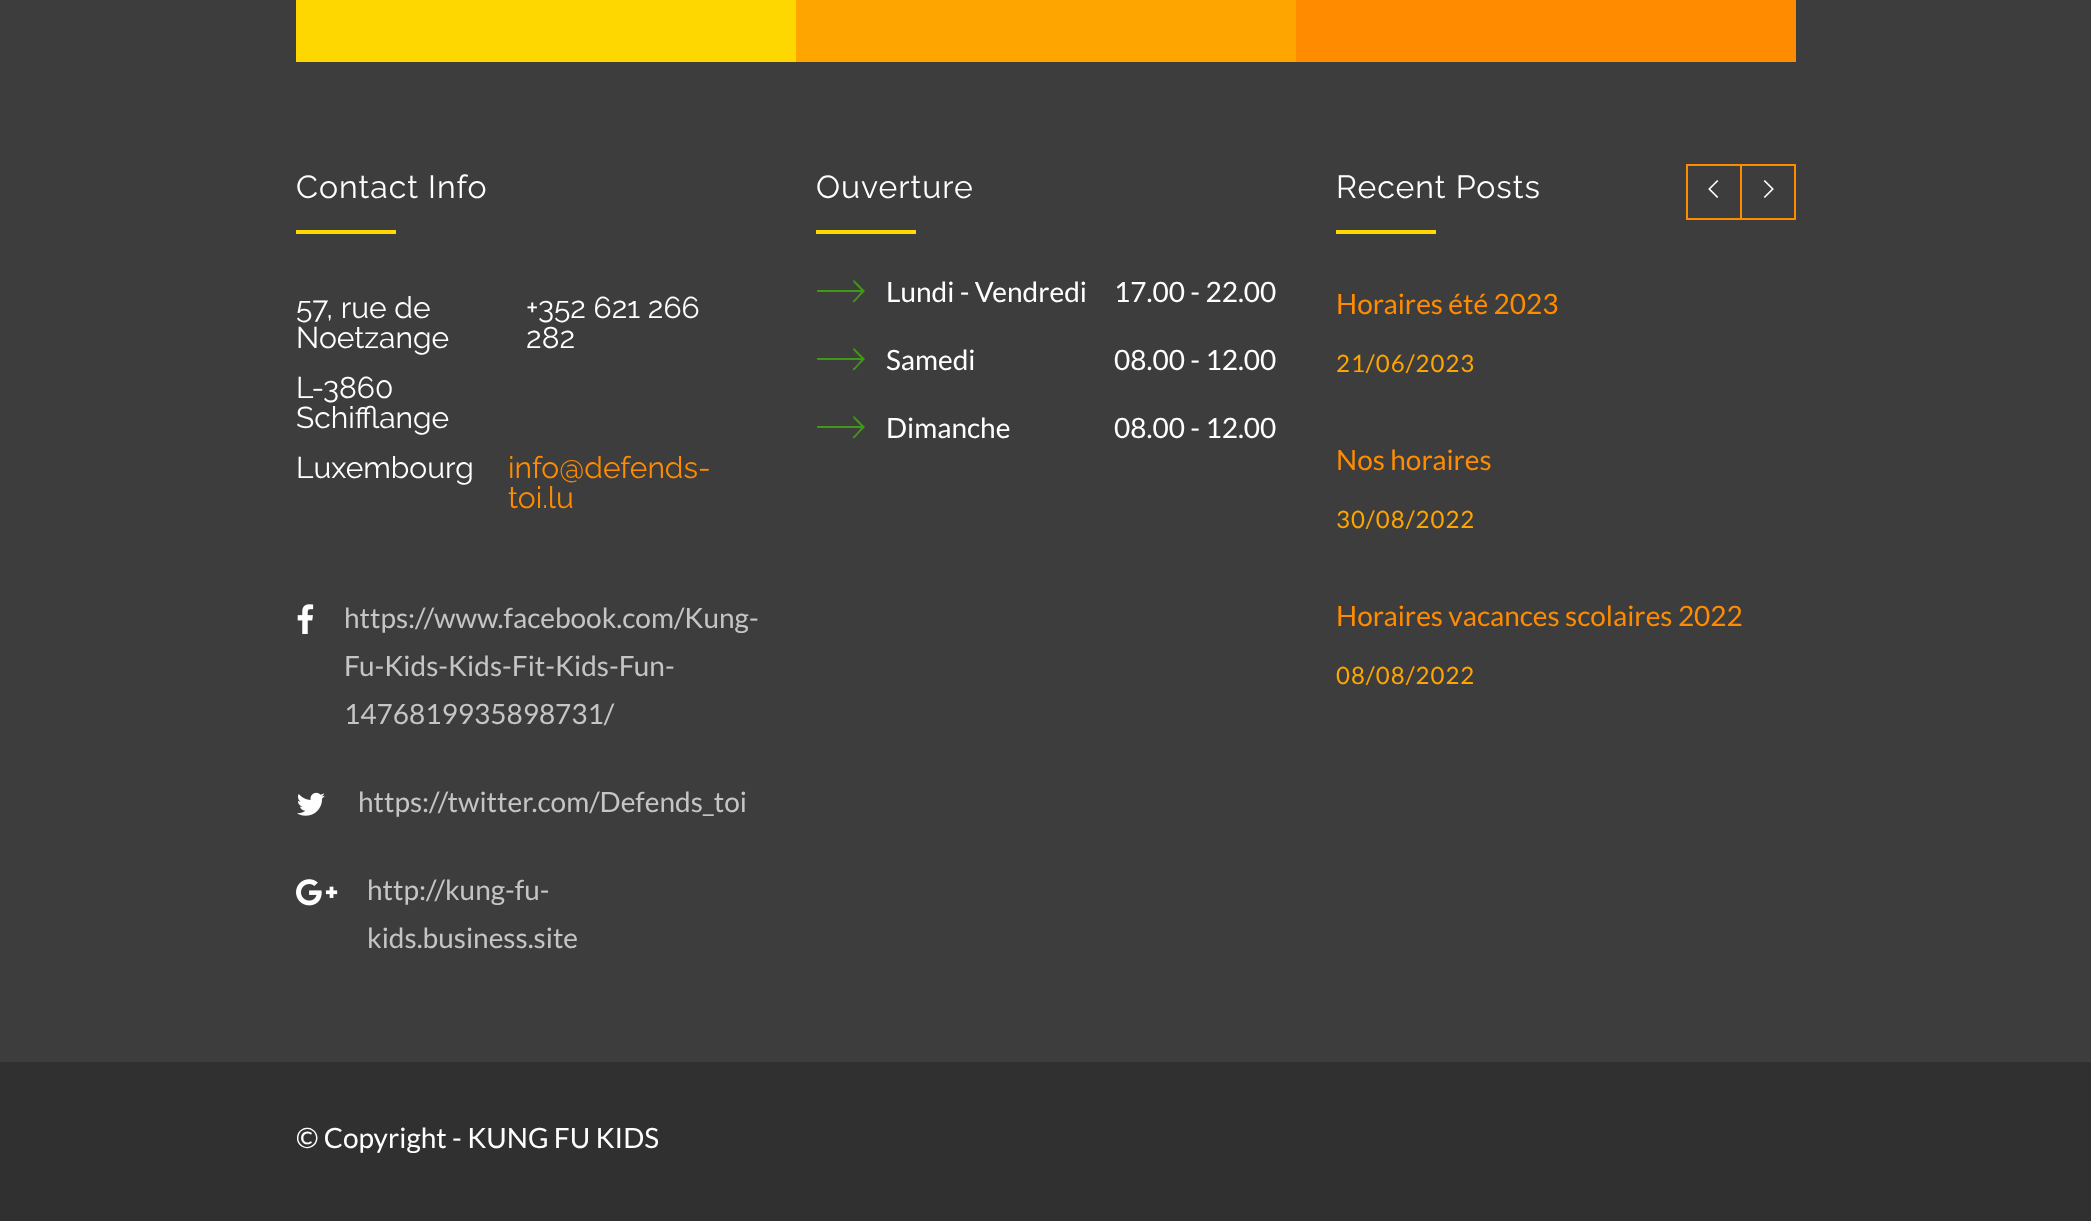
<svg xmlns="http://www.w3.org/2000/svg" width="2091" height="1221">
<rect width="100%" height="100%" fill="#303030"/>
<rect width="2091" height="1062" fill="#3d3d3d"/>
<rect x="296" width="500" height="62" fill="#ffd700"/>
<rect x="796" width="500" height="62" fill="#ffa500"/>
<rect x="1296" width="500" height="62" fill="#ff8c00"/>
<text x="296" y="198" style="font-family:Raleway;font-size:32px;letter-spacing:1px;fill:#fff">Contact Info</text>
<rect x="296" y="230" width="100" height="4" fill="#ffd900"/>
<text x="296" y="318" style="font-family:Raleway;font-size:30px;fill:#fff">57, rue de</text>
<text x="296" y="348" style="font-family:Raleway;font-size:30px;fill:#fff">Noetzange</text>
<text x="526" y="318" style="font-family:Raleway;font-size:30px;fill:#fff">+352 621 266</text>
<text x="526" y="348" style="font-family:Raleway;font-size:30px;fill:#fff">282</text>
<text x="296" y="398" style="font-family:Raleway;font-size:30px;fill:#fff">L-3860</text>
<text x="296" y="428" style="font-family:Raleway;font-size:30px;fill:#fff">Schifflange</text>
<text x="296" y="478" style="font-family:Raleway;font-size:30px;fill:#fff">Luxembourg</text>
<text x="508" y="478" style="font-family:Raleway;font-size:30px;fill:#ff8c00">info@defends-</text>
<text x="508" y="508" style="font-family:Raleway;font-size:30px;fill:#ff8c00">toi.lu</text>
<image x="297" y="604" width="17" height="30" href="media/1.png"/>
<text x="344" y="628" style="font-family:Lato;font-size:28px;fill:#c5c5c5">https://www.facebook.com/Kung-</text>
<text x="344" y="676" style="font-family:Lato;font-size:28px;fill:#c5c5c5">Fu-Kids-Kids-Fit-Kids-Fun-</text>
<text x="344" y="724" style="font-family:Lato;font-size:28px;fill:#c5c5c5">1476819935898731/</text>
<image x="297" y="792" width="28" height="24" href="media/2.png"/>
<text x="358" y="812" style="font-family:Lato;font-size:28px;fill:#c5c5c5">https://twitter.com/Defends_toi</text>
<image x="296" y="879" width="42" height="27" href="media/3.png"/>
<text x="367" y="900" style="font-family:Lato;font-size:28px;fill:#c5c5c5">http://kung-fu-</text>
<text x="367" y="948" style="font-family:Lato;font-size:28px;fill:#c5c5c5">kids.business.site</text>
<text x="816" y="198" style="font-family:Raleway;font-size:32px;letter-spacing:1px;fill:#fff">Ouverture</text>
<rect x="816" y="230" width="100" height="4" fill="#ffd900"/>
<path d="M854 280l-1 1c0 1 7 8 8 9h-44c0 1 0 2 1 2h43l-5 6c0 0-4 3-3 4c2 1 5-4 5-4l7-7z" fill="#409915"/>
<text x="886" y="302" style="font-family:Lato;font-size:28px;fill:#fff">Lundi - Vendredi</text>
<text x="1114" y="302" style="font-family:Lato;font-size:28px;fill:#fff">17.00 - 22.00</text>
<path d="M854 348l-1 1c0 1 7 8 8 9h-44c0 1 0 2 1 2h43l-5 6c0 0-4 3-3 4c2 1 5-4 5-4l7-7z" fill="#409915"/>
<text x="886" y="370" style="font-family:Lato;font-size:28px;fill:#fff">Samedi</text>
<text x="1114" y="370" style="font-family:Lato;font-size:28px;fill:#fff">08.00 - 12.00</text>
<path d="M854 416l-1 1c0 1 7 8 8 9h-44c0 1 0 2 1 2h43l-5 6c0 0-4 3-3 4c2 1 5-4 5-4l7-7z" fill="#409915"/>
<text x="886" y="438" style="font-family:Lato;font-size:28px;fill:#fff">Dimanche</text>
<text x="1114" y="438" style="font-family:Lato;font-size:28px;fill:#fff">08.00 - 12.00</text>
<text x="1336" y="198" style="font-family:Raleway;font-size:32px;letter-spacing:1px;fill:#fff">Recent Posts</text>
<rect x="1336" y="230" width="100" height="4" fill="#ffd900"/>
<rect x="1687" y="165" width="54" height="54" fill="none" stroke="#ff8c00" stroke-width="2"/>
<image x="1708" y="180" width="11" height="18" href="media/4.png"/>
<rect x="1741" y="165" width="54" height="54" fill="none" stroke="#ff8c00" stroke-width="2"/>
<image x="1763" y="180" width="11" height="18" href="media/5.png"/>
<text x="1336" y="314" style="font-family:Lato;font-size:28px;fill:#ff8c00">Horaires été 2023</text>
<text x="1336" y="372" style="font-family:Lato;font-size:24px;letter-spacing:1px;fill:#ffa500">21/06/2023</text>
<text x="1336" y="470" style="font-family:Lato;font-size:28px;fill:#ff8c00">Nos horaires</text>
<text x="1336" y="528" style="font-family:Lato;font-size:24px;letter-spacing:1px;fill:#ffa500">30/08/2022</text>
<text x="1336" y="626" style="font-family:Lato;font-size:28px;fill:#ff8c00">Horaires vacances scolaires 2022</text>
<text x="1336" y="684" style="font-family:Lato;font-size:24px;letter-spacing:1px;fill:#ffa500">08/08/2022</text>
<text x="296" y="1148" style="font-family:Lato;font-size:28px;fill:#fff">© Copyright - KUNG FU KIDS</text>
</svg>
